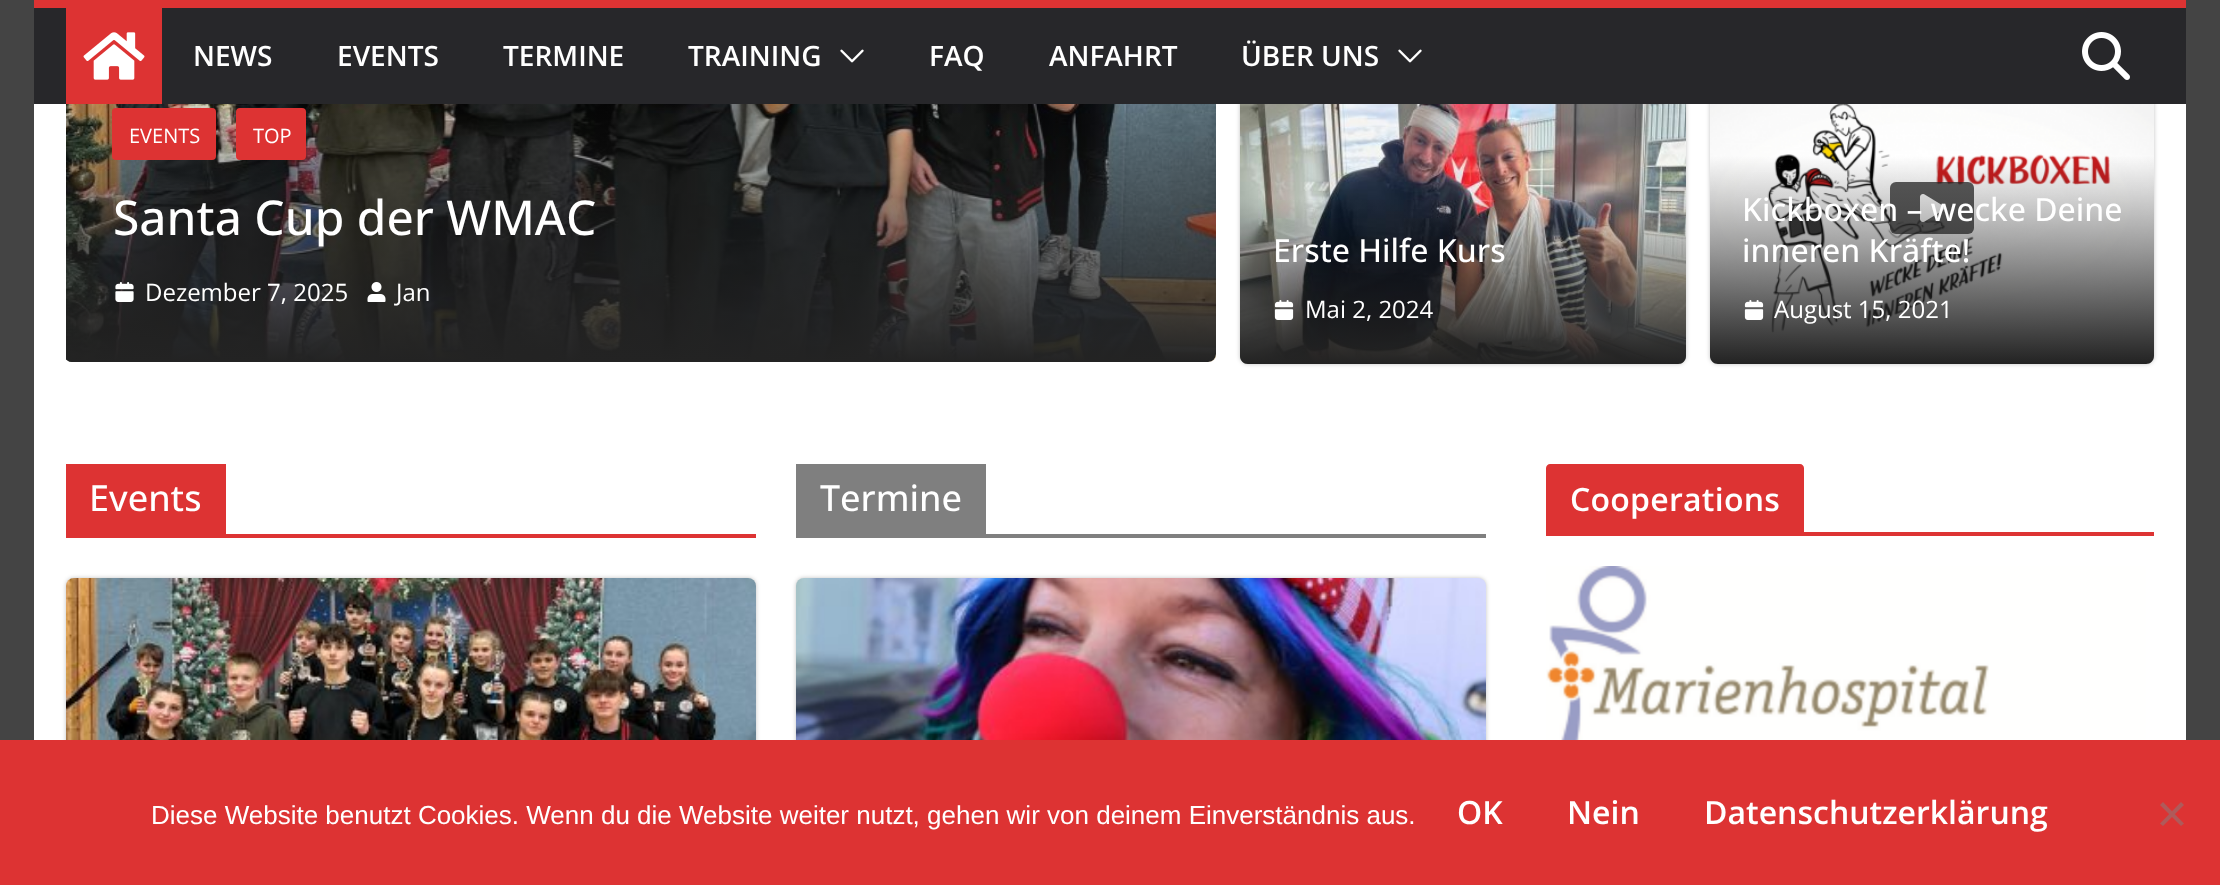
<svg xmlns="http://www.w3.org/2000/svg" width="2220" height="885">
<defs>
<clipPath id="clip1"><rect x="64" y="-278" width="1152" height="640" rx="8"/></clipPath>
<linearGradient id="g1" gradientUnits="userSpaceOnUse" x1="641" y1="60" x2="641" y2="362"><stop offset="0" stop-color="#232323" stop-opacity="0"/><stop offset="1" stop-color="#232323"/></linearGradient>
<linearGradient id="g2" gradientUnits="userSpaceOnUse" x1="1463" y1="198" x2="1463" y2="364"><stop offset="0" stop-color="#232323" stop-opacity="0"/><stop offset="1" stop-color="#232323"/></linearGradient>
<linearGradient id="g3" gradientUnits="userSpaceOnUse" x1="1932" y1="156" x2="1932" y2="364"><stop offset="0" stop-color="#232323" stop-opacity="0"/><stop offset="1" stop-color="#232323"/></linearGradient>
</defs>
<rect width="100%" height="100%" fill="#444"/>
<rect x="34" y="104" width="2152" height="636" fill="#fff"/>
<image x="66" y="104" width="1150" height="258" href="media/4.png"/>
<g clip-path="url(#clip1)">
<path d="M66 60h1150v294c0 4.5-3.5 8-8 8h-1142z" fill="url(#g1)"/>
</g>
<rect x="1240" y="54" width="446" height="310" rx="8" fill="#0000003d" filter="blur(2px)"/>
<rect x="1710" y="54" width="444" height="310" rx="8" fill="#0000003d" filter="blur(2px)"/>
<rect x="34" y="8" width="2152" height="96" fill="#27272a"/>
<rect x="34" width="2152" height="8" fill="#d33"/>
<rect x="66" y="8" width="96" height="96" fill="#d33"/>
<image x="83" y="32" width="62" height="48" href="media/1.png"/>
<text x="193" y="66" style="font-family:Open Sans;font-size:28px;font-weight:600;fill:#fff">NEWS</text>
<text x="337" y="66" style="font-family:Open Sans;font-size:28px;font-weight:600;fill:#fff">EVENTS</text>
<text x="503" y="66" style="font-family:Open Sans;font-size:28px;font-weight:600;fill:#fff">TERMINE</text>
<text x="688" y="66" style="font-family:Open Sans;font-size:28px;font-weight:600;fill:#fff">TRAINING</text>
<image x="840" y="49" width="24" height="14" href="media/2.png"/>
<text x="929" y="66" style="font-family:Open Sans;font-size:28px;font-weight:600;fill:#fff">FAQ</text>
<text x="1049" y="66" style="font-family:Open Sans;font-size:28px;font-weight:600;fill:#fff">ANFAHRT</text>
<text x="1241" y="66" style="font-family:Open Sans;font-size:28px;font-weight:600;fill:#fff">ÜBER UNS</text>
<image x="1398" y="49" width="24" height="14" href="media/2.png"/>
<image x="2082" y="32" width="48" height="48" href="media/3.png"/>
<rect x="112" y="108" width="104" height="52" rx="4" fill="#d33"/>
<text x="129" y="143" style="font-family:Open Sans;font-size:20px;fill:#fff">EVENTS</text>
<rect x="236" y="108" width="70" height="52" rx="4" fill="#d33"/>
<text x="253" y="143" style="font-family:Open Sans;font-size:20px;fill:#fff">TOP</text>
<text x="113" y="235" style="font-family:Open Sans;font-size:48px;font-weight:500;fill:#fff">Santa Cup der WMAC</text>
<image x="115" y="282" width="19" height="20" href="media/5.png"/>
<text x="145" y="301" style="font-family:Open Sans;font-size:24px;fill:#fff">Dezember 7, 2025</text>
<image x="367" y="282" width="19" height="20" href="media/6.png"/>
<text x="396" y="301" style="font-family:Open Sans;font-size:24px;fill:#fff">Jan</text>
<image x="1240" y="104" width="446" height="260" href="media/7.png"/>
<path d="M1240 198h446v158c0 4.5-3.5 8-8 8h-430c-4.5 0-8-3.5-8-8z" fill="url(#g2)"/>
<text x="1273" y="262" style="font-family:Open Sans;font-size:32px;font-weight:500;fill:#fff">Erste Hilfe Kurs</text>
<image x="1274" y="300" width="20" height="20" href="media/8.png"/>
<text x="1305" y="318" style="font-family:Open Sans;font-size:24px;fill:#fff">Mai 2, 2024</text>
<image x="1710" y="104" width="444" height="260" href="media/9.png"/>
<rect x="1890" y="182" width="84" height="52" rx="6" fill="#232323bf"/>
<image x="1920" y="194" width="24" height="28" href="media/10.png"/>
<path d="M1710 156h444v200c0 4.5-3.5 8-8 8h-428c-4.5 0-8-3.5-8-8z" fill="url(#g3)"/>
<text x="1742" y="221" style="font-family:Open Sans;font-size:32px;font-weight:500;fill:#fff">Kickboxen – wecke Deine</text>
<text x="1742" y="262" style="font-family:Open Sans;font-size:32px;font-weight:500;fill:#fff">inneren Kräfte!</text>
<image x="1744" y="300" width="20" height="20" href="media/11.png"/>
<text x="1774" y="318" style="font-family:Open Sans;font-size:24px;fill:#fff">August 15, 2021</text>
<rect x="66" y="534" width="690" height="4" fill="#d33"/>
<rect x="66" y="464" width="160" height="70" fill="#d33"/>
<text x="89" y="511" style="font-family:Open Sans;font-size:36px;font-weight:500;fill:#fff">Events</text>
<rect x="66" y="578" width="690" height="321" rx="8" fill="#0000003d" filter="blur(2px)"/>
<image x="66" y="578" width="690" height="162" href="media/12.png"/>
<rect x="796" y="534" width="690" height="4" fill="#7f7f7f"/>
<rect x="796" y="464" width="190" height="70" fill="#7f7f7f"/>
<text x="820" y="511" style="font-family:Open Sans;font-size:36px;font-weight:500;fill:#fff">Termine</text>
<rect x="796" y="578" width="690" height="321" rx="8" fill="#0000003d" filter="blur(2px)"/>
<image x="796" y="578" width="690" height="162" href="media/13.png"/>
<rect x="1546" y="532" width="608" height="4" fill="#d33"/>
<path d="M1550 464h250c2 0 4 2 4 4v64h-258v-64c0-2 2-4 4-4z" fill="#d33"/>
<text x="1570" y="511" style="font-family:Open Sans;font-size:32px;font-weight:600;letter-spacing:0.25px;fill:#fff">Cooperations</text>
<image x="1546" y="566" width="600" height="174" href="media/14.png"/>
<rect y="740" width="2220" height="145" fill="#d33"/>
<text x="151" y="824" style="font-family:Liberation Sans;font-size:26px;fill:#fff">Diese Website benutzt Cookies. Wenn du die Website weiter nutzt, gehen wir von deinem Einverständnis aus.</text>
<text x="1457" y="824" style="font-family:Open Sans;font-size:32px;font-weight:600;fill:#fff">OK</text>
<text x="1567" y="824" style="font-family:Open Sans;font-size:32px;font-weight:600;fill:#fff">Nein</text>
<text x="1704" y="824" style="font-family:Open Sans;font-size:32px;font-weight:600;fill:#fff">Datenschutzerklärung</text>
<path d="M2181 802l3 3l-21 21l-3-2.5z" fill="#af5a5a"/>
<path d="M2160 805l3-3l21 21.5l-3 2.5z" fill="#af5a5a"/>
</svg>
